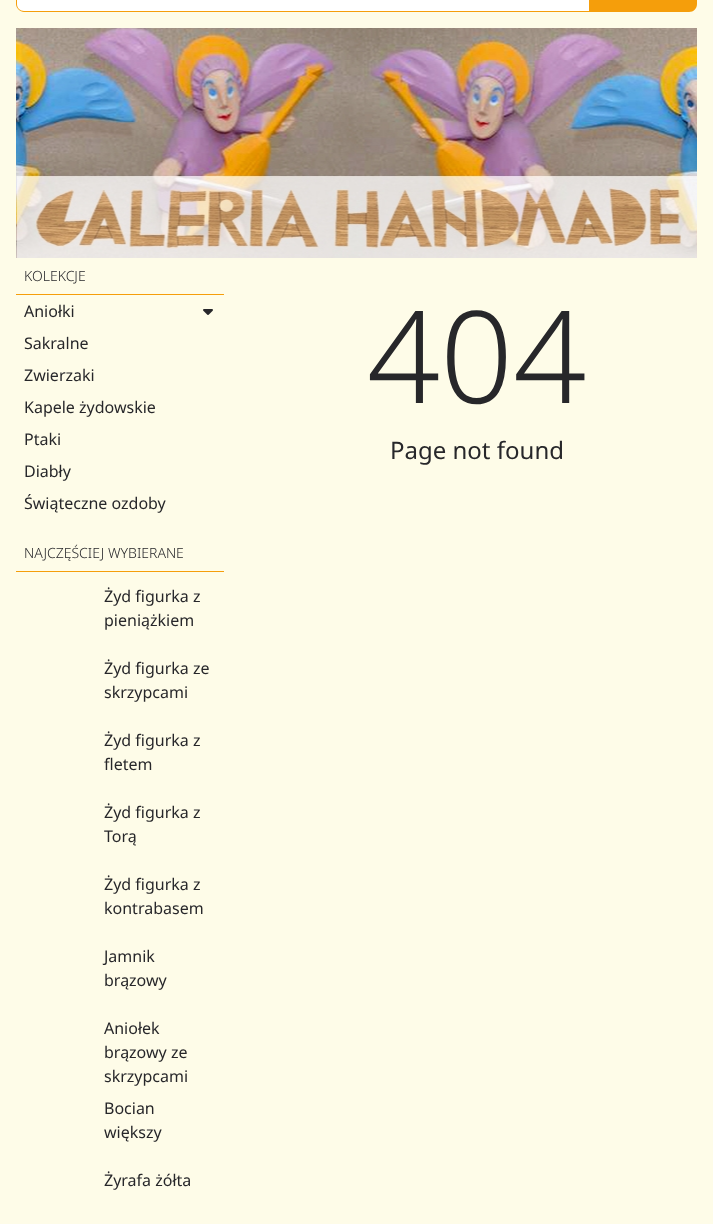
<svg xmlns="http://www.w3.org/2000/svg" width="713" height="1224">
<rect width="100%" height="100%" fill="#fefce8"/>
<path d="M24-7h565v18h-565c-4 0-7-3-7-7v-4c0-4 3-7 7-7z" fill="#fff"/>
<path d="M24-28h565v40h-565c-4 0-8-4-8-8v-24c0-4 4-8 8-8zm0 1h565v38h-565c-4 0-7-3-7-7v-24c0-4 3-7 7-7z" fill="#f59e0b" fill-rule="evenodd"/>
<path d="M589-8h100c4.5 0 8 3.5 8 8v4c0 4.5-3.5 8-8 8h-100z" fill="#f59e0b"/>
<image x="16" y="28" width="681" height="230" href="media/1.png"/>
<rect x="16" y="294" width="208" height="1" fill="#f59e0b"/>
<text x="24" y="281" style="font-family:Noto Sans;font-size:14px;font-weight:300;fill:#27272a">KOLEKCJE</text>
<text x="24" y="317" style="font-family:Noto Sans;font-size:16px;fill:#27272a">Aniołki</text>
<image x="203" y="309" width="10" height="6" href="media/2.png"/>
<text x="24" y="349" style="font-family:Noto Sans;font-size:16px;fill:#27272a">Sakralne</text>
<text x="24" y="381" style="font-family:Noto Sans;font-size:16px;fill:#27272a">Zwierzaki</text>
<text x="24" y="413" style="font-family:Noto Sans;font-size:16px;fill:#27272a">Kapele żydowskie</text>
<text x="24" y="445" style="font-family:Noto Sans;font-size:16px;fill:#27272a">Ptaki</text>
<text x="24" y="477" style="font-family:Noto Sans;font-size:16px;fill:#27272a">Diabły</text>
<text x="24" y="509" style="font-family:Noto Sans;font-size:16px;fill:#27272a">Świąteczne ozdoby</text>
<rect x="16" y="571" width="208" height="1" fill="#f59e0b"/>
<text x="24" y="558" style="font-family:Noto Sans;font-size:14px;font-weight:300;fill:#27272a">NAJCZĘŚCIEJ WYBIERANE</text>
<text x="104" y="602" style="font-family:Noto Sans;font-size:16px;fill:#27272a">Żyd figurka z</text>
<text x="104" y="626" style="font-family:Noto Sans;font-size:16px;fill:#27272a">pieniążkiem</text>
<text x="104" y="674" style="font-family:Noto Sans;font-size:16px;fill:#27272a">Żyd figurka ze</text>
<text x="104" y="698" style="font-family:Noto Sans;font-size:16px;fill:#27272a">skrzypcami</text>
<text x="104" y="746" style="font-family:Noto Sans;font-size:16px;fill:#27272a">Żyd figurka z</text>
<text x="104" y="770" style="font-family:Noto Sans;font-size:16px;fill:#27272a">fletem</text>
<text x="104" y="818" style="font-family:Noto Sans;font-size:16px;fill:#27272a">Żyd figurka z</text>
<text x="104" y="842" style="font-family:Noto Sans;font-size:16px;fill:#27272a">Torą</text>
<text x="104" y="890" style="font-family:Noto Sans;font-size:16px;fill:#27272a">Żyd figurka z</text>
<text x="104" y="914" style="font-family:Noto Sans;font-size:16px;fill:#27272a">kontrabasem</text>
<text x="104" y="962" style="font-family:Noto Sans;font-size:16px;fill:#27272a">Jamnik</text>
<text x="104" y="986" style="font-family:Noto Sans;font-size:16px;fill:#27272a">brązowy</text>
<text x="104" y="1034" style="font-family:Noto Sans;font-size:16px;fill:#27272a">Aniołek</text>
<text x="104" y="1058" style="font-family:Noto Sans;font-size:16px;fill:#27272a">brązowy ze</text>
<text x="104" y="1082" style="font-family:Noto Sans;font-size:16px;fill:#27272a">skrzypcami</text>
<text x="104" y="1114" style="font-family:Noto Sans;font-size:16px;fill:#27272a">Bocian</text>
<text x="104" y="1138" style="font-family:Noto Sans;font-size:16px;fill:#27272a">większy</text>
<text x="104" y="1186" style="font-family:Noto Sans;font-size:16px;fill:#27272a">Żyrafa żółta</text>
<text x="367" y="403" style="font-family:Noto Sans;font-size:128px;font-weight:300;fill:#27272a">404</text>
<text x="390" y="459" style="font-family:Noto Sans;font-size:24px;fill:#27272a">Page not found</text>
</svg>
